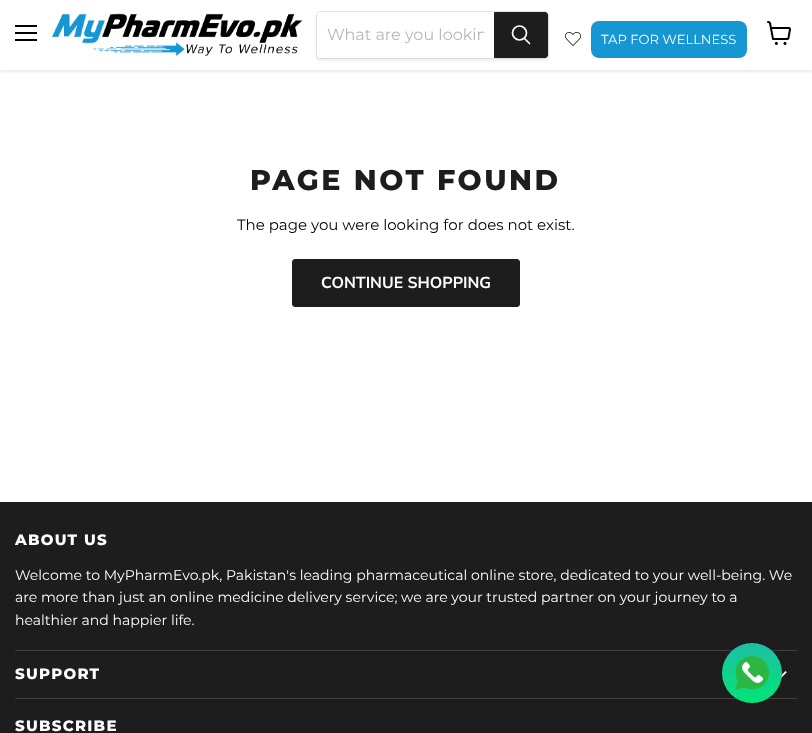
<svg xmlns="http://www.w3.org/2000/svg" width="812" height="733">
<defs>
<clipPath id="clip1"><rect x="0" y="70" width="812" height="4"/></clipPath>
<clipPath id="clip2"><rect x="327" y="25" width="157" height="19"/></clipPath>
<linearGradient id="g1" gradientUnits="userSpaceOnUse" x1="752" y1="643" x2="752" y2="703"><stop offset="0" stop-color="#1ebea5"/><stop offset="1" stop-color="#01e677"/></linearGradient>
</defs>
<rect width="100%" height="100%" fill="#fff"/>
<g clip-path="url(#clip1)">
<rect y="1" width="812" height="70" fill="#80808040" filter="blur(2px)"/>
</g>
<rect x="15" y="25" width="22" height="2" fill="#000"/>
<rect x="15" y="32" width="22" height="2" fill="#000"/>
<rect x="15" y="39" width="22" height="2" fill="#000"/>
<image x="52" y="13" width="250" height="43" href="media/1.png"/>
<rect x="316" y="13" width="233" height="48" rx="4" fill="#8080801c" filter="blur(1.5px)"/>
<rect x="316.5" y="11.5" width="232" height="47" rx="3.5" fill="none" stroke="#80808033"/>
<path d="M320 12h174v46h-174c-1.5 0-3-1.5-3-3v-40c0-1.5 1.5-3 3-3z" fill="#fff"/>
<g clip-path="url(#clip2)">
<text x="327" y="40" style="font-family:Montserrat;font-size:16px;fill:#b8b8b8">What are you lookin</text>
</g>
<path d="M494.5 12.5h50.5c1.5 0 2.5 1 2.5 2.5v40c0 1.5-1 2.5-2.5 2.5h-50.5z" fill="#1d1d1d" stroke="#1d1d1d"/>
<path d="M529.5 43.5l-5-5" fill="none" stroke="#fff" stroke-width="1.7" stroke-linecap="round"/>
<circle cx="519.5" cy="33" r="7" fill="none" stroke="#fff" stroke-width="1.7"/>
<image x="565" y="32" width="16" height="14" href="media/2.png"/>
<rect x="591" y="21" width="156" height="37" rx="8" fill="#1796d4"/>
<text x="601" y="44" style="font-family:Montserrat;font-size:13.1px;fill:#fffdfd">TAP FOR WELLNESS</text>
<image x="767" y="21" width="24" height="24" href="media/3.png"/>
<text x="250" y="190" style="font-family:Montserrat;font-size:28.5px;font-weight:800;letter-spacing:2.5px;fill:#1d1d1d">PAGE NOT FOUND</text>
<text x="237" y="230" style="font-family:Montserrat;font-size:15px;fill:#000">The page you were looking for does not exist.</text>
<rect x="292.5" y="259.5" width="227" height="47" rx="2.5" fill="#1d1d1d" stroke="#1d1d1d"/>
<text x="321" y="288" style="font-family:Nunito Sans;font-size:15.9px;font-weight:bold;fill:#fffdfd">CONTINUE SHOPPING</text>
<rect y="502" width="812" height="231" fill="#1d1d1d"/>
<rect x="15" y="650" width="782" height="1" fill="#3f3f3f"/>
<text x="15" y="545" style="font-family:Montserrat;font-size:15px;font-weight:800;letter-spacing:1.25px;fill:#fffdfd">ABOUT US</text>
<text x="15" y="580" style="font-family:Montserrat;font-size:14.05px;fill:#fffdfd">Welcome to MyPharmEvo.pk, Pakistan's leading pharmaceutical online store, dedicated to your well-being. We</text>
<text x="15" y="602" style="font-family:Montserrat;font-size:14.05px;fill:#fffdfd">are more than just an online medicine delivery service; we are your trusted partner on your journey to a</text>
<text x="15" y="625" style="font-family:Montserrat;font-size:14.05px;fill:#fffdfd">healthier and happier life.</text>
<rect x="15" y="698" width="782" height="1" fill="#3f3f3f"/>
<text x="15" y="679" style="font-family:Montserrat;font-size:15px;font-weight:800;letter-spacing:1.25px;fill:#fffdfd">SUPPORT</text>
<image x="781" y="671" width="6" height="7" href="media/4.png"/>
<text x="15" y="731" style="font-family:Montserrat;font-size:15px;font-weight:800;letter-spacing:1.25px;fill:#fffdfd">SUBSCRIBE</text>
<rect x="722" y="644" width="60" height="60" rx="30" fill="#00000026" filter="blur(1px)"/>
<circle cx="752" cy="673" r="30" fill="url(#g1)"/>
<image x="735" y="656" width="34" height="34" href="media/5.png"/>
</svg>
